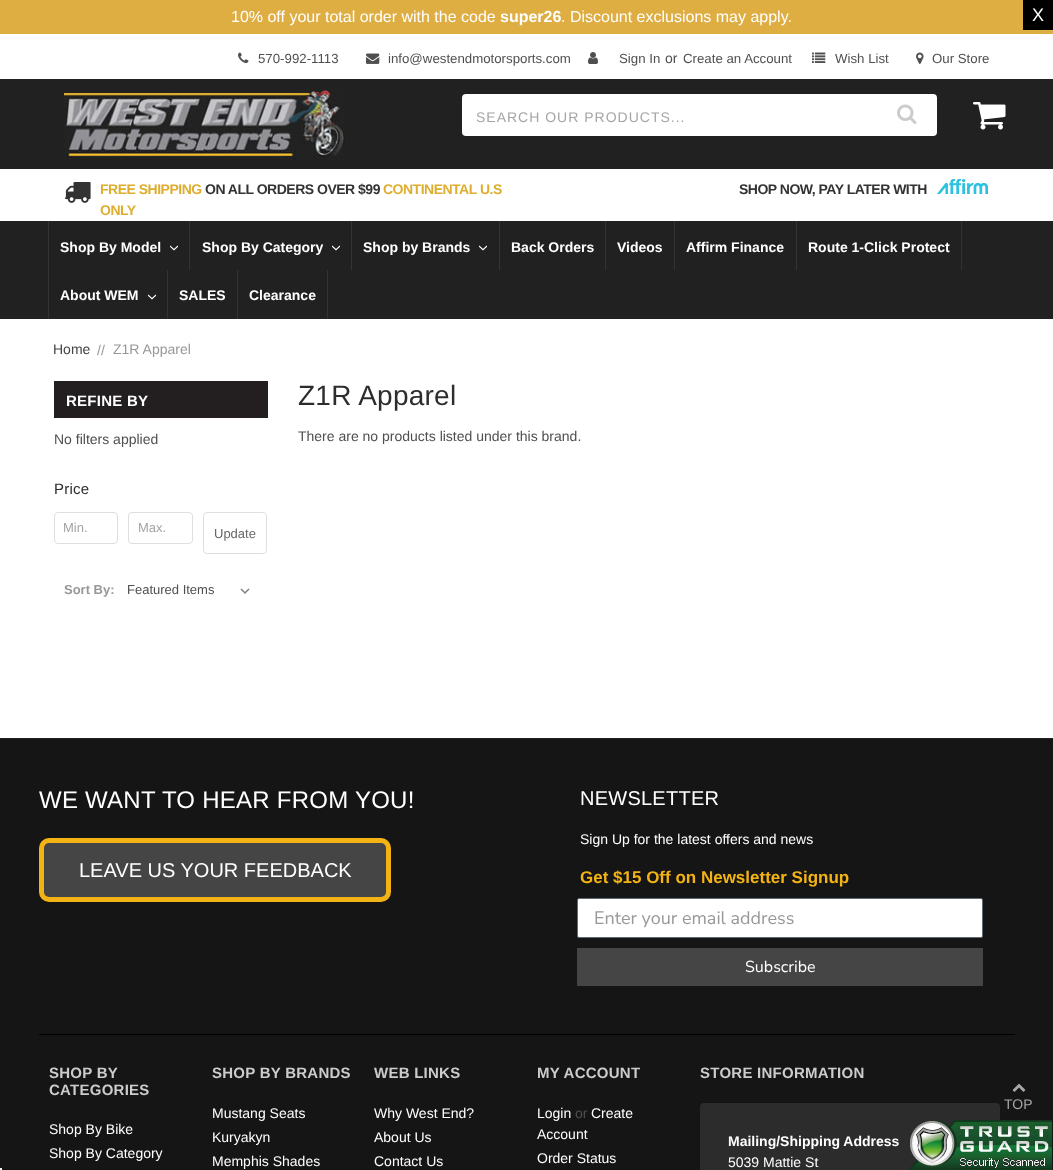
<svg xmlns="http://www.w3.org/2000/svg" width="1053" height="1170">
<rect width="100%" height="100%" fill="#fff"/>
<rect width="1053" height="34" fill="#dfae43"/>
<text x="231" y="22" style="font-family:Liberation Sans;font-size:16px;fill:#fff">10% off your total order with the code</text>
<text x="500" y="22" style="font-family:Liberation Sans;font-size:16px;font-weight:bold;fill:#fff">super26</text>
<text x="561" y="22" style="font-family:Liberation Sans;font-size:16px;fill:#fff">. Discount exclusions may apply.</text>
<rect x="1023" width="30" height="30" fill="#000"/>
<text x="1032" y="21" style="font-family:Liberation Sans;font-size:18px;fill:#fff">X</text>
<image x="238" y="52" width="11" height="11" href="media/1.png"/>
<text x="258" y="63" style="font-family:Liberation Sans;font-size:13.25px;fill:#4f4f4f">570-992-1113</text>
<image x="366" y="53" width="14" height="11" href="media/2.png"/>
<text x="388" y="63" style="font-family:Liberation Sans;font-size:13.25px;fill:#4f4f4f">info@westendmotorsports.com</text>
<image x="588" y="52" width="10" height="12" href="media/3.png"/>
<text x="619" y="63" style="font-family:Liberation Sans;font-size:13.25px;fill:#4f4f4f">Sign In</text>
<text x="665" y="63" style="font-family:Liberation Sans;font-size:14px;fill:#4f4f4f">or</text>
<text x="683" y="63" style="font-family:Liberation Sans;font-size:13.25px;fill:#4f4f4f">Create an Account</text>
<image x="812" y="52" width="14" height="11" href="media/4.png"/>
<text x="835" y="63" style="font-family:Liberation Sans;font-size:13.25px;fill:#4f4f4f">Wish List</text>
<image x="916" y="52" width="8" height="12" href="media/5.png"/>
<text x="932" y="63" style="font-family:Liberation Sans;font-size:13.25px;fill:#4f4f4f">Our Store</text>
<rect y="79" width="1053" height="90" fill="#212121"/>
<image x="64" y="89" width="281" height="70" href="media/6.png"/>
<rect x="462" y="94" width="475" height="42" rx="4" fill="#fff"/>
<text x="476" y="122" style="font-family:Liberation Sans;font-size:14px;letter-spacing:1px;fill:#a5a5a5">SEARCH OUR PRODUCTS...</text>
<image x="897" y="104" width="20" height="20" href="media/7.png"/>
<image x="973" y="102" width="33" height="28" href="media/8.png"/>
<image x="65" y="182" width="26" height="21" href="media/9.png"/>
<text x="100" y="194" style="font-family:Liberation Sans;font-size:14px;font-weight:bold;letter-spacing:-0.5px;fill:#ddae2f">FREE SHIPPING</text>
<text x="205" y="194" style="font-family:Liberation Sans;font-size:14px;font-weight:bold;letter-spacing:-0.5px;fill:#333">ON ALL ORDERS OVER $99</text>
<text x="383" y="194" style="font-family:Liberation Sans;font-size:14px;font-weight:bold;letter-spacing:-0.5px;fill:#ddae2f">CONTINENTAL U.S</text>
<text x="100" y="215" style="font-family:Liberation Sans;font-size:14px;font-weight:bold;letter-spacing:-0.5px;fill:#ddae2f">ONLY</text>
<text x="739" y="194" style="font-family:Liberation Sans;font-size:14px;font-weight:bold;letter-spacing:-0.5px;fill:#333">SHOP NOW, PAY LATER WITH</text>
<image x="937" y="179" width="51" height="15" href="media/10.png"/>
<rect y="221" width="1053" height="98" fill="#212121"/>
<rect x="189" y="221" width="1" height="49" fill="#333"/>
<rect x="48" y="221" width="1" height="98" fill="#333"/>
<text x="60" y="252" style="font-family:Liberation Sans;font-size:14px;font-weight:bold;fill:#fff">Shop By Model</text>
<image x="170" y="245" width="8" height="6" href="media/11.png"/>
<rect x="351" y="221" width="1" height="49" fill="#333"/>
<text x="202" y="252" style="font-family:Liberation Sans;font-size:14px;font-weight:bold;fill:#fff">Shop By Category</text>
<image x="332" y="245" width="8" height="6" href="media/11.png"/>
<rect x="499" y="221" width="1" height="49" fill="#333"/>
<text x="363" y="252" style="font-family:Liberation Sans;font-size:14px;font-weight:bold;fill:#fff">Shop by Brands</text>
<image x="479" y="245" width="8" height="6" href="media/11.png"/>
<rect x="605" y="221" width="1" height="49" fill="#333"/>
<text x="511" y="252" style="font-family:Liberation Sans;font-size:14px;font-weight:bold;fill:#fff">Back Orders</text>
<rect x="674" y="221" width="1" height="49" fill="#333"/>
<text x="617" y="252" style="font-family:Liberation Sans;font-size:14px;font-weight:bold;fill:#fff">Videos</text>
<rect x="796" y="221" width="1" height="49" fill="#333"/>
<text x="686" y="252" style="font-family:Liberation Sans;font-size:14px;font-weight:bold;fill:#fff">Affirm Finance</text>
<rect x="961" y="221" width="1" height="49" fill="#333"/>
<text x="808" y="252" style="font-family:Liberation Sans;font-size:14px;font-weight:bold;fill:#fff">Route 1-Click Protect</text>
<rect x="167" y="270" width="1" height="49" fill="#333"/>
<text x="60" y="300" style="font-family:Liberation Sans;font-size:14px;font-weight:bold;fill:#fff">About WEM</text>
<image x="148" y="294" width="8" height="6" href="media/11.png"/>
<rect x="237" y="270" width="1" height="49" fill="#333"/>
<text x="179" y="300" style="font-family:Liberation Sans;font-size:14px;font-weight:bold;fill:#fff">SALES</text>
<rect x="327" y="270" width="1" height="49" fill="#333"/>
<text x="249" y="300" style="font-family:Liberation Sans;font-size:14px;font-weight:bold;fill:#fff">Clearance</text>
<text x="53" y="354" style="font-family:Liberation Sans;font-size:14px;fill:#444">Home</text>
<text x="97" y="355" style="font-family:Liberation Sans;font-size:14px;fill:#989898">//</text>
<text x="113" y="354" style="font-family:Liberation Sans;font-size:14px;fill:#989898">Z1R Apparel</text>
<rect x="54" y="381" width="214" height="37" fill="#231f20"/>
<text x="66" y="406" style="font-family:Liberation Sans;font-size:15px;font-weight:bold;letter-spacing:0.25px;fill:#fff">REFINE BY</text>
<text x="54" y="444" style="font-family:Liberation Sans;font-size:14px;fill:#4f4f4f">No filters applied</text>
<text x="54" y="494" style="font-family:Liberation Sans;font-size:15px;letter-spacing:0.25px;fill:#2d2d2d">Price</text>
<rect x="54.5" y="512.5" width="63" height="31" rx="3.5" fill="none" stroke="#dfdfdf"/>
<text x="63" y="532" style="font-family:Liberation Sans;font-size:13px;fill:#a5a5a5">Min.</text>
<rect x="128.5" y="512.5" width="64" height="31" rx="3.5" fill="none" stroke="#dfdfdf"/>
<text x="138" y="532" style="font-family:Liberation Sans;font-size:13px;fill:#a5a5a5">Max.</text>
<rect x="203.5" y="512.5" width="63" height="41" rx="3.5" fill="none" stroke="#dfdfdf"/>
<text x="214" y="538" style="font-family:Liberation Sans;font-size:13px;fill:#666">Update</text>
<text x="64" y="594" style="font-family:Liberation Sans;font-size:13px;font-weight:bold;fill:#989898">Sort By:</text>
<image x="240" y="588" width="10" height="6" href="media/12.png"/>
<text x="127" y="594" style="font-family:Liberation Sans;font-size:13px;fill:#4f4f4f">Featured Items</text>
<text x="298" y="405" style="font-family:Liberation Sans;font-size:28px;letter-spacing:0.25px;fill:#2d2d2d">Z1R Apparel</text>
<text x="298" y="441" style="font-family:Liberation Sans;font-size:14px;fill:#4f4f4f">There are no products listed under this brand.</text>
<rect y="739" width="1053" height="431" fill="#151515"/>
<rect y="738" width="1053" height="1" fill="#222"/>
<rect x="39" y="1034" width="976" height="1" fill="#000"/>
<text x="39" y="808" style="font-family:Liberation Sans;font-size:24px;letter-spacing:0.25px;fill:#fff">WE WANT TO HEAR FROM YOU!</text>
<rect x="41.5" y="840.5" width="347" height="59" rx="7.5" fill="#454545" stroke="#f3b314" stroke-width="5"/>
<text x="79" y="877" style="font-family:Liberation Sans;font-size:20px;fill:#fff">LEAVE US YOUR FEEDBACK</text>
<text x="580" y="805" style="font-family:Liberation Sans;font-size:20px;letter-spacing:0.25px;fill:#fff">NEWSLETTER</text>
<text x="580" y="844" style="font-family:Liberation Sans;font-size:14px;fill:#fff">Sign Up for the latest offers and news</text>
<text x="580" y="883" style="font-family:Liberation Sans;font-size:17px;font-weight:bold;fill:#f3b314">Get $15 Off on Newsletter Signup</text>
<rect x="577.5" y="898.5" width="405" height="39" rx="1.5" fill="#fff" stroke="#606a72"/>
<text x="594" y="924" style="font-family:Nunito Sans;font-size:18px;fill:#989898">Enter your email address</text>
<rect x="577" y="948" width="406" height="38" fill="#454545"/>
<text x="745" y="972" style="font-family:Nunito Sans;font-size:16px;fill:#fff">Subscribe</text>
<text x="49" y="1078" style="font-family:Liberation Sans;font-size:15px;font-weight:bold;letter-spacing:0.25px;fill:#ccc">SHOP BY</text>
<text x="49" y="1095" style="font-family:Liberation Sans;font-size:15px;font-weight:bold;letter-spacing:0.25px;fill:#ccc">CATEGORIES</text>
<text x="49" y="1134" style="font-family:Liberation Sans;font-size:14px;fill:#fff">Shop By Bike</text>
<text x="49" y="1158" style="font-family:Liberation Sans;font-size:14px;fill:#fff">Shop By Category</text>
<text x="212" y="1078" style="font-family:Liberation Sans;font-size:15px;font-weight:bold;letter-spacing:0.25px;fill:#ccc">SHOP BY BRANDS</text>
<text x="212" y="1118" style="font-family:Liberation Sans;font-size:14px;fill:#fff">Mustang Seats</text>
<text x="212" y="1142" style="font-family:Liberation Sans;font-size:14px;fill:#fff">Kuryakyn</text>
<text x="212" y="1166" style="font-family:Liberation Sans;font-size:14px;fill:#fff">Memphis Shades</text>
<text x="374" y="1078" style="font-family:Liberation Sans;font-size:15px;font-weight:bold;letter-spacing:0.25px;fill:#ccc">WEB LINKS</text>
<text x="374" y="1118" style="font-family:Liberation Sans;font-size:14px;fill:#fff">Why West End?</text>
<text x="374" y="1142" style="font-family:Liberation Sans;font-size:14px;fill:#fff">About Us</text>
<text x="374" y="1166" style="font-family:Liberation Sans;font-size:14px;fill:#fff">Contact Us</text>
<text x="537" y="1078" style="font-family:Liberation Sans;font-size:15px;font-weight:bold;letter-spacing:0.25px;fill:#ccc">MY ACCOUNT</text>
<text x="537" y="1118" style="font-family:Liberation Sans;font-size:14px;fill:#fff">Login</text>
<text x="575" y="1118" style="font-family:Liberation Sans;font-size:14px;fill:#4f4f4f">or</text>
<text x="591" y="1118" style="font-family:Liberation Sans;font-size:14px;fill:#fff">Create</text>
<text x="537" y="1139" style="font-family:Liberation Sans;font-size:14px;fill:#fff">Account</text>
<text x="537" y="1163" style="font-family:Liberation Sans;font-size:14px;fill:#fff">Order Status</text>
<text x="700" y="1078" style="font-family:Liberation Sans;font-size:15px;font-weight:bold;letter-spacing:0.25px;fill:#ccc">STORE INFORMATION</text>
<rect x="700" y="1103" width="300" height="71" rx="4" fill="#2c2c2c"/>
<text x="728" y="1146" style="font-family:Liberation Sans;font-size:14px;font-weight:bold;fill:#fff">Mailing/Shipping Address</text>
<text x="728" y="1167" style="font-family:Liberation Sans;font-size:14px;fill:#fff">5039 Mattie St</text>
<image x="1012" y="1083" width="14" height="9" href="media/13.png"/>
<text x="1004" y="1109" style="font-family:Liberation Sans;font-size:14px;fill:#a5a5a5">TOP</text>
<rect y="1168" width="2" height="2" fill="#f5f5f5"/>
<image x="908" y="1120" width="47" height="50" href="media/14.png"/>
<image x="955" y="1120" width="97" height="50" href="media/15.png"/>
</svg>
